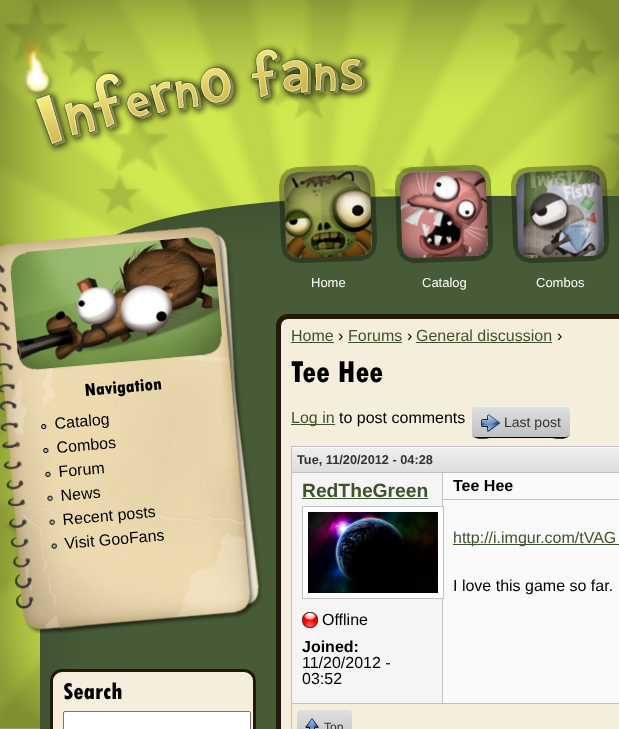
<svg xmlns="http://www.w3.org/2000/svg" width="619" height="729">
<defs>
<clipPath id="clip1"><rect x="472" y="406" width="98" height="31" rx="5"/></clipPath>
<linearGradient id="g1" gradientUnits="userSpaceOnUse" x1="472" y1="377" x2="472" y2="407"><stop offset="0" stop-color="#dfdfdf"/><stop offset="1" stop-color="#c1c1c1"/></linearGradient>
<linearGradient id="g2" gradientUnits="userSpaceOnUse" x1="472" y1="407" x2="472" y2="437"><stop offset="0" stop-color="#dfdfdf"/><stop offset="1" stop-color="#c1c1c1"/></linearGradient>
<linearGradient id="g3" gradientUnits="userSpaceOnUse" x1="292" y1="448" x2="292" y2="472"><stop offset="0" stop-color="#efefef"/><stop offset="1" stop-color="#ddd"/></linearGradient>
<clipPath id="clip2"><rect x="297" y="709" width="55" height="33" rx="5"/></clipPath>
<linearGradient id="g4" gradientUnits="userSpaceOnUse" x1="297" y1="678" x2="297" y2="710"><stop offset="0" stop-color="#dfdfdf"/><stop offset="1" stop-color="#c1c1c1"/></linearGradient>
<linearGradient id="g5" gradientUnits="userSpaceOnUse" x1="297" y1="710" x2="297" y2="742"><stop offset="0" stop-color="#dfdfdf"/><stop offset="1" stop-color="#c1c1c1"/></linearGradient>
</defs>
<rect width="100%" height="100%" fill="#fff"/>
<image x="0" y="0" width="619" height="729" href="media/1.png"/>
<image x="4" y="2" width="615" height="559" href="media/2.png"/>
<image x="22" y="42" width="351" height="111" href="media/3.png"/>
<image x="113" y="195" width="506" height="170" href="media/4.png"/>
<image x="40" y="365" width="236" height="364" href="media/5.png"/>
<image x="279" y="164" width="98" height="99" href="media/6.png"/>
<text x="311" y="287" style="font-family:Liberation Sans;font-size:13px;fill:#fff">Home</text>
<image x="394" y="164" width="99" height="100" href="media/7.png"/>
<text x="422" y="287" style="font-family:Liberation Sans;font-size:13px;fill:#fff">Catalog</text>
<image x="510" y="164" width="99" height="100" href="media/8.png"/>
<text x="536" y="287" style="font-family:Liberation Sans;font-size:13px;fill:#fff">Combos</text>
<image x="0" y="226" width="262" height="408" href="media/9.png"/>
<image x="10" y="237" width="213" height="133" href="media/10.png"/>
<text x="85" y="396" transform="rotate(-5 85 396)" style="font-family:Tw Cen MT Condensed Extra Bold;font-size:18.5px;font-weight:800;fill:#000">Navigation</text>
<image x="41" y="424" width="6" height="6" href="media/11.png"/>
<text x="55" y="429" transform="rotate(-5 55 429)" style="font-family:Liberation Sans;font-size:16px;fill:#000">Catalog</text>
<image x="43" y="447" width="6" height="7" href="media/12.png"/>
<text x="57" y="453" transform="rotate(-5 57 453)" style="font-family:Liberation Sans;font-size:16px;fill:#000">Combos</text>
<image x="45" y="471" width="6" height="6" href="media/13.png"/>
<text x="59" y="477" transform="rotate(-5 59 477)" style="font-family:Liberation Sans;font-size:16px;fill:#000">Forum</text>
<image x="47" y="495" width="6" height="6" href="media/14.png"/>
<text x="61" y="501" transform="rotate(-5 61 501)" style="font-family:Liberation Sans;font-size:16px;fill:#000">News</text>
<image x="49" y="519" width="6" height="6" href="media/15.png"/>
<text x="63" y="525" transform="rotate(-5 63 525)" style="font-family:Liberation Sans;font-size:16px;fill:#000">Recent posts</text>
<image x="51" y="543" width="6" height="6" href="media/16.png"/>
<text x="65" y="549" transform="rotate(-5 65 549)" style="font-family:Liberation Sans;font-size:16px;fill:#000">Visit GooFans</text>
<rect x="51.5" y="670.5" width="203" height="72" rx="10.5" fill="#f6eedd" stroke="#24180a" stroke-width="3"/>
<text x="63" y="699" style="font-family:Tw Cen MT Condensed Extra Bold;font-size:24px;font-weight:800;fill:#000">Search</text>
<rect x="63.5" y="711.5" width="187" height="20" rx="1.5" fill="#fff" stroke="#767676"/>
<rect x="278.5" y="316.5" width="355" height="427" rx="9.5" fill="#f6eedd" stroke="#24180a" stroke-width="5"/>
<text x="291" y="341" style="font-family:Liberation Sans;font-size:16px;fill:#3c532b">Home</text>
<rect x="291" y="342" width="43" height="1" fill="#3c532b"/>
<text x="338" y="341" style="font-family:Liberation Sans;font-size:16px;fill:#000">›</text>
<text x="348" y="341" style="font-family:Liberation Sans;font-size:16px;fill:#3c532b">Forums</text>
<rect x="348" y="342" width="54" height="1" fill="#3c532b"/>
<text x="407" y="341" style="font-family:Liberation Sans;font-size:16px;fill:#000">›</text>
<text x="416" y="341" style="font-family:Liberation Sans;font-size:16px;fill:#3c532b">General discussion</text>
<rect x="416" y="342" width="136" height="1" fill="#3c532b"/>
<text x="557" y="341" style="font-family:Liberation Sans;font-size:16px;fill:#000">›</text>
<text x="291" y="382" style="font-family:Tw Cen MT Condensed Extra Bold;font-size:32px;font-weight:800;fill:#000">Tee Hee</text>
<rect x="291" y="424" width="44" height="1" fill="#3c532b"/>
<text x="291" y="423" style="font-family:Liberation Sans;font-size:16px;fill:#3c532b">Log in</text>
<text x="339" y="423" style="font-family:Liberation Sans;font-size:16px;fill:#000">to post comments</text>
<path d="M472 432c0 10 14 6 20 6h58c6 0 20 4 20-6c0 3-2 5-5 5h-88c-3 0-5-2-5-5z" fill="#000"/>
<g clip-path="url(#clip1)">
<rect x="472" y="406" width="3" height="1" fill="url(#g1)"/>
<path d="M472 407h98v25c0 3-2 5-5 5h-88c-3 0-5-2-5-5z" fill="url(#g2)"/>
</g>
<rect x="475" y="406" width="93" height="1" fill="#eaf8e4"/>
<image x="481" y="414" width="20" height="18" href="media/17.png"/>
<text x="504" y="427" style="font-family:Liberation Sans;font-size:14px;fill:#333">Last post</text>
<rect x="291.5" y="446.5" width="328" height="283" fill="none" stroke="#c1c1c1"/>
<rect x="292" y="448" width="327" height="24" fill="url(#g3)"/>
<rect x="292" y="447" width="327" height="1" fill="#fafafa"/>
<rect x="292" y="472" width="327" height="1" fill="#c1c1c1"/>
<text x="297" y="464" style="font-family:Liberation Sans;font-size:12.75px;font-weight:bold;fill:#333">Tue, 11/20/2012 - 04:28</text>
<rect x="292" y="473" width="150" height="230" fill="#f5f5f5"/>
<text x="302" y="497" style="font-family:Liberation Sans;font-size:19.25px;font-weight:bold;fill:#3c532b">RedTheGreen</text>
<rect x="302" y="498" width="126" height="1" fill="#3c532b"/>
<rect x="443" y="473" width="176" height="230" fill="#fafafa"/>
<rect x="442" y="473" width="1" height="230" fill="#c1c1c1"/>
<rect x="302.5" y="506.5" width="141" height="92" fill="#fff" stroke="#c1c1c1"/>
<image x="308" y="512" width="130" height="81" href="media/18.png"/>
<image x="302" y="612" width="16" height="16" href="media/19.png"/>
<text x="322" y="625" style="font-family:Liberation Sans;font-size:16px;fill:#000">Offline</text>
<text x="302" y="652" style="font-family:Liberation Sans;font-size:16px;font-weight:bold;fill:#000">Joined:</text>
<text x="302" y="668" style="font-family:Liberation Sans;font-size:16px;fill:#000">11/20/2012 -</text>
<text x="302" y="684" style="font-family:Liberation Sans;font-size:16px;fill:#000">03:52</text>
<rect x="443" y="499" width="176" height="1" fill="#c1c1c1"/>
<text x="453" y="491" style="font-family:Liberation Sans;font-size:16px;font-weight:bold;fill:#000">Tee Hee</text>
<rect x="453" y="544" width="166" height="1" fill="#3c532b"/>
<text x="453" y="543" style="font-family:Liberation Sans;font-size:16px;fill:#3c532b">http://i.imgur.com/tVAG</text>
<text x="453" y="591" style="font-family:Liberation Sans;font-size:16px;fill:#000">I love this game so far.</text>
<rect x="292" y="703" width="327" height="1" fill="#c1c1c1"/>
<g clip-path="url(#clip2)">
<rect x="297" y="709" width="3" height="1" fill="url(#g4)"/>
<path d="M297 710h55v19c0 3-2 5-5 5h-45c-3 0-5-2-5-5z" fill="url(#g5)"/>
</g>
<rect x="300" y="709" width="50" height="1" fill="#eaf8e4"/>
<image x="305" y="718" width="14" height="11" href="media/20.png"/>
<text x="324" y="731" style="font-family:Liberation Sans;font-size:12px;fill:#333">Top</text>
</svg>
